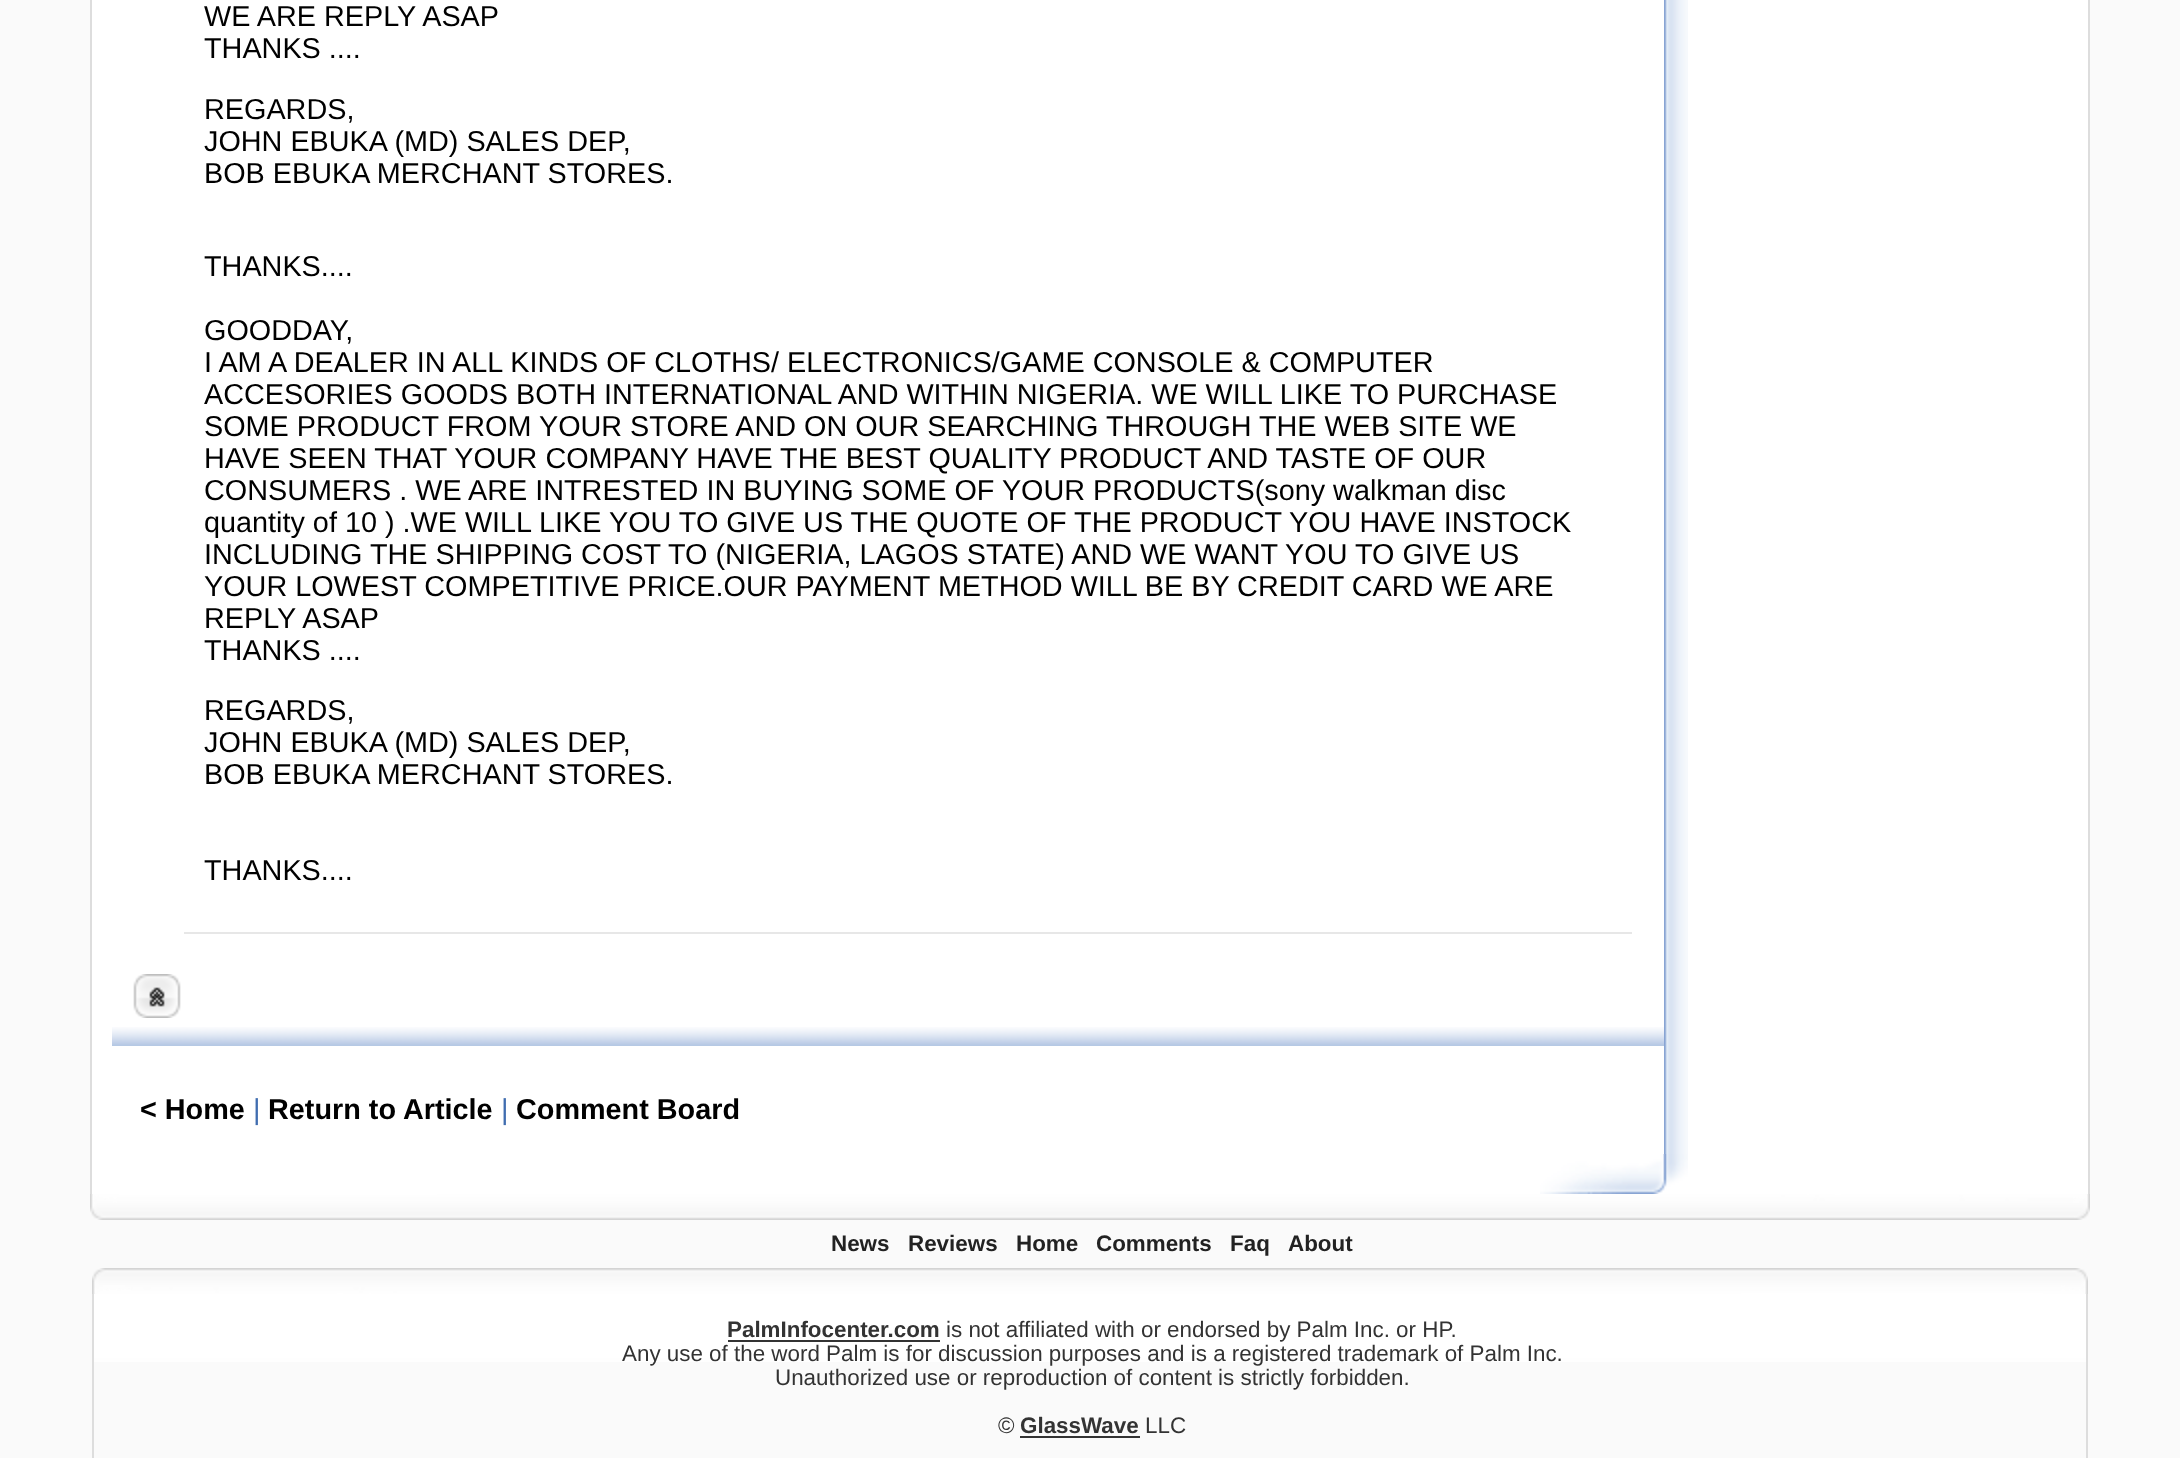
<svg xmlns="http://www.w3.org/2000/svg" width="2180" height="1458">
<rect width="100%" height="100%" fill="#fafafa"/>
<rect x="92" width="1996" height="1194" fill="#fff"/>
<rect x="2088" width="2" height="1194" fill="#ddd"/>
<rect x="90" width="2" height="1194" fill="#ddd"/>
<image x="1664" y="0" width="24" height="1154" href="media/1.png"/>
<rect x="184" y="932" width="1448" height="2" fill="#e7e7e7"/>
<text x="204" y="26" style="font-family:Liberation Sans;font-size:28.8px;fill:#000">WE ARE REPLY ASAP</text>
<text x="204" y="58" style="font-family:Liberation Sans;font-size:28.8px;fill:#000">THANKS ....</text>
<text x="204" y="119" style="font-family:Liberation Sans;font-size:28.8px;fill:#000">REGARDS,</text>
<text x="204" y="151" style="font-family:Liberation Sans;font-size:28.8px;fill:#000">JOHN EBUKA (MD) SALES DEP,</text>
<text x="204" y="183" style="font-family:Liberation Sans;font-size:28.8px;fill:#000">BOB EBUKA MERCHANT STORES.</text>
<text x="204" y="276" style="font-family:Liberation Sans;font-size:28.8px;fill:#000">THANKS....</text>
<text x="204" y="340" style="font-family:Liberation Sans;font-size:28.8px;fill:#000">GOODDAY,</text>
<text x="204" y="372" style="font-family:Liberation Sans;font-size:28.8px;fill:#000">I AM A DEALER IN ALL KINDS OF CLOTHS/ ELECTRONICS/GAME CONSOLE &amp; COMPUTER</text>
<text x="204" y="404" style="font-family:Liberation Sans;font-size:28.8px;fill:#000">ACCESORIES GOODS BOTH INTERNATIONAL AND WITHIN NIGERIA. WE WILL LIKE TO PURCHASE</text>
<text x="204" y="436" style="font-family:Liberation Sans;font-size:28.8px;fill:#000">SOME PRODUCT FROM YOUR STORE AND ON OUR SEARCHING THROUGH THE WEB SITE WE</text>
<text x="204" y="468" style="font-family:Liberation Sans;font-size:28.8px;fill:#000">HAVE SEEN THAT YOUR COMPANY HAVE THE BEST QUALITY</text>
<text x="1059" y="468" style="font-family:Liberation Sans;font-size:28.8px;fill:#000">PRODUCT AND TASTE OF OUR</text>
<text x="204" y="500" style="font-family:Liberation Sans;font-size:28.8px;fill:#000">CONSUMERS . WE ARE INTRESTED IN BUYING SOME OF YOUR PRODUCTS(sony walkman disc</text>
<text x="204" y="532" style="font-family:Liberation Sans;font-size:28.8px;fill:#000">quantity of 10 ) .WE WILL LIKE YOU TO GIVE US THE QUOTE OF THE PRODUCT YOU HAVE INSTOCK</text>
<text x="204" y="564" style="font-family:Liberation Sans;font-size:28.8px;fill:#000">INCLUDING THE SHIPPING COST TO (NIGERIA, LAGOS STATE) AND WE WANT YOU TO GIVE US</text>
<text x="204" y="596" style="font-family:Liberation Sans;font-size:28.8px;fill:#000">YOUR LOWEST COMPETITIVE PRICE.OUR PAYMENT METHOD WILL BE BY CREDIT CARD WE ARE</text>
<text x="204" y="628" style="font-family:Liberation Sans;font-size:28.8px;fill:#000">REPLY ASAP</text>
<text x="204" y="660" style="font-family:Liberation Sans;font-size:28.8px;fill:#000">THANKS ....</text>
<text x="204" y="720" style="font-family:Liberation Sans;font-size:28.8px;fill:#000">REGARDS,</text>
<text x="204" y="752" style="font-family:Liberation Sans;font-size:28.8px;fill:#000">JOHN EBUKA (MD) SALES DEP,</text>
<text x="204" y="784" style="font-family:Liberation Sans;font-size:28.8px;fill:#000">BOB EBUKA MERCHANT STORES.</text>
<text x="204" y="880" style="font-family:Liberation Sans;font-size:28.8px;fill:#000">THANKS....</text>
<image x="112" y="1027" width="1552" height="19" href="media/2.png"/>
<image x="133" y="974" width="48" height="44" href="media/3.png"/>
<text x="140" y="1119" style="font-family:Liberation Sans;font-size:28.8px;font-weight:bold;fill:#000">&lt; Home</text>
<text x="253" y="1119" style="font-family:Liberation Sans;font-size:28.8px;fill:#406db0">|</text>
<text x="268" y="1119" style="font-family:Liberation Sans;font-size:28.8px;font-weight:bold;fill:#000">Return to Article</text>
<text x="501" y="1119" style="font-family:Liberation Sans;font-size:28.8px;fill:#406db0">|</text>
<text x="516" y="1119" style="font-family:Liberation Sans;font-size:28.8px;font-weight:bold;fill:#000">Comment Board</text>
<image x="1540" y="1154" width="148" height="40" href="media/4.png"/>
<image x="90" y="1194" width="2000" height="26" href="media/5.png"/>
<text x="831" y="1251" style="font-family:Liberation Sans;font-size:22.4px;font-weight:bold;fill:#222">News</text>
<text x="908" y="1251" style="font-family:Liberation Sans;font-size:22.4px;font-weight:bold;fill:#222">Reviews</text>
<text x="1016" y="1251" style="font-family:Liberation Sans;font-size:22.4px;font-weight:bold;fill:#222">Home</text>
<text x="1096" y="1251" style="font-family:Liberation Sans;font-size:22.4px;font-weight:bold;fill:#222">Comments</text>
<text x="1230" y="1251" style="font-family:Liberation Sans;font-size:22.4px;font-weight:bold;fill:#222">Faq</text>
<text x="1288" y="1251" style="font-family:Liberation Sans;font-size:22.4px;font-weight:bold;fill:#222">About</text>
<image x="92" y="1268" width="1996" height="26" href="media/6.png"/>
<image x="94" y="1294" width="1992" height="68" href="media/7.png"/>
<rect x="2086" y="1294" width="2" height="164" fill="#ddd"/>
<rect x="92" y="1294" width="2" height="164" fill="#ddd"/>
<text x="727" y="1337" style="font-family:Liberation Sans;font-size:22.4px;font-weight:bold;fill:#333">PalmInfocenter.com</text>
<rect x="728" y="1340" width="212" height="2" fill="#333"/>
<text x="946" y="1337" style="font-family:Liberation Sans;font-size:22.4px;fill:#333">is not affiliated with or endorsed by Palm Inc. or HP.</text>
<text x="622" y="1361" style="font-family:Liberation Sans;font-size:22.4px;fill:#333">Any use of the word Palm is for discussion purposes and is a registered trademark of Palm Inc.</text>
<text x="775" y="1385" style="font-family:Liberation Sans;font-size:22.4px;fill:#333">Unauthorized use or reproduction of content is strictly forbidden.</text>
<text x="998" y="1433" style="font-family:Liberation Sans;font-size:22.4px;fill:#333">©</text>
<text x="1020" y="1433" style="font-family:Liberation Sans;font-size:22.4px;font-weight:bold;fill:#333">GlassWave</text>
<rect x="1020" y="1436" width="120" height="2" fill="#333"/>
<text x="1145" y="1433" style="font-family:Liberation Sans;font-size:22.4px;fill:#333">LLC</text>
</svg>
